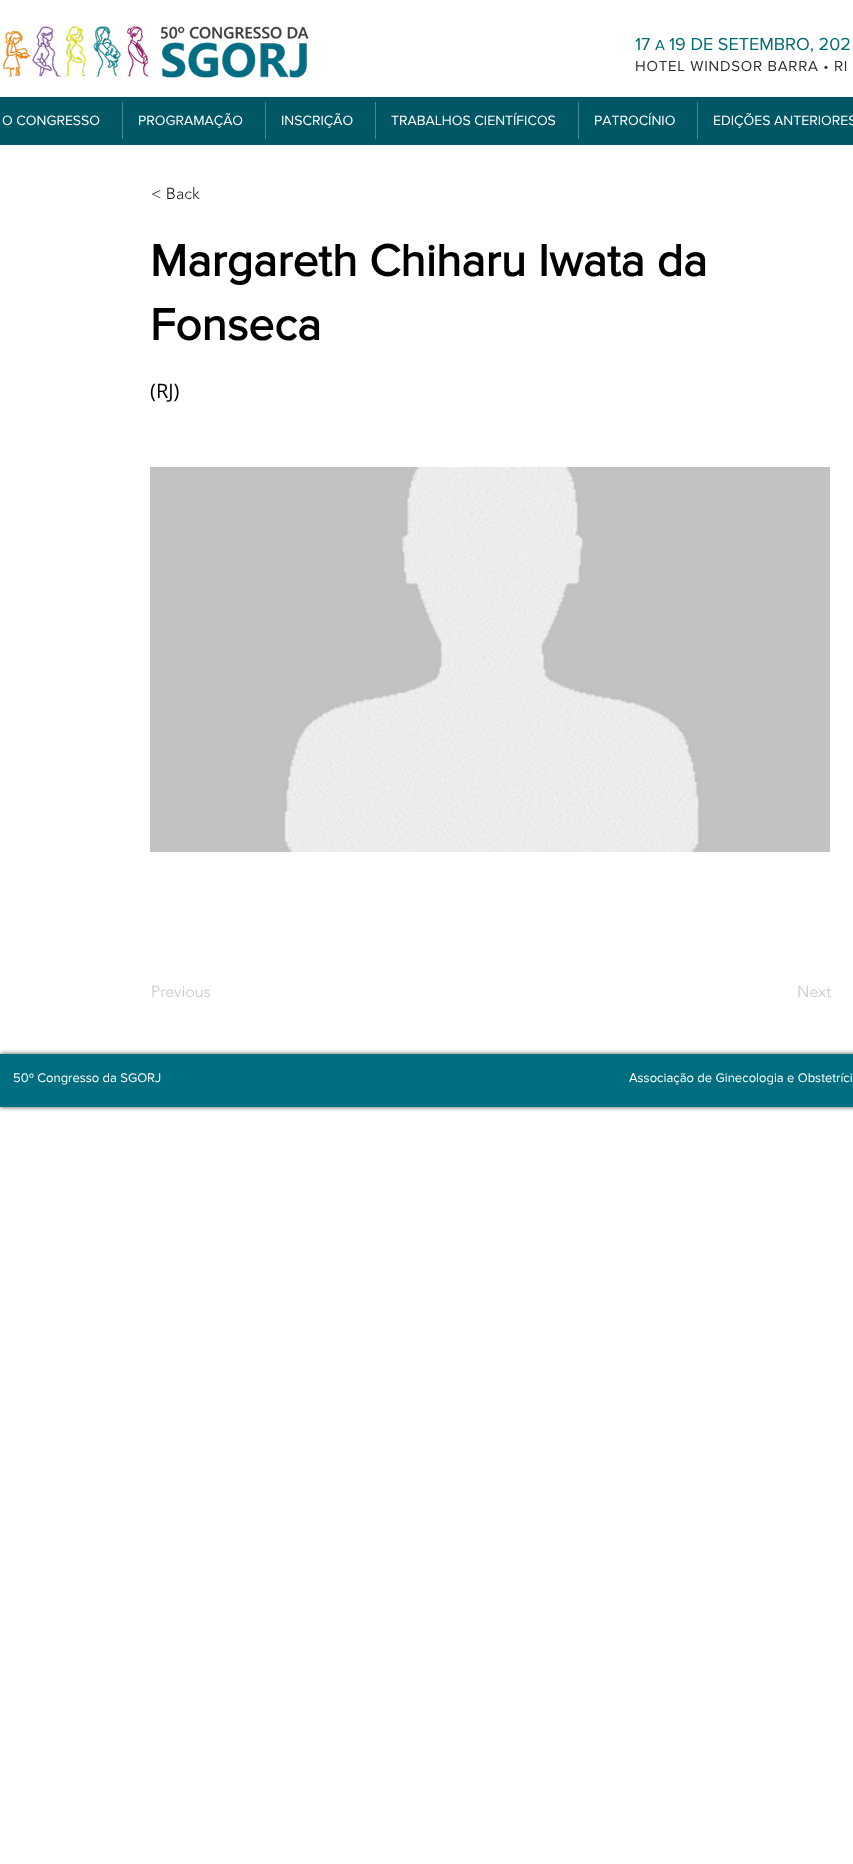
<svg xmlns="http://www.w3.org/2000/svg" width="853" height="1864">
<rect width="100%" height="100%" fill="#fff"/>
<image x="3" y="26" width="306" height="52" href="media/1.png"/>
<text x="635" y="50" style="font-family:'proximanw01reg';font-size:18px;fill:#016b70">17</text>
<text x="655" y="50" style="font-family:'proximanw01reg';font-size:15px;fill:#016b70">A</text>
<text x="669" y="50" style="font-family:'proximanw01reg';font-size:18px;fill:#016b70">19 DE SETEMBRO, 202</text>
<text x="635" y="71" style="font-family:'proximanw01reg';font-size:15px;letter-spacing:0.75px;fill:#2e3138">HOTEL WINDSOR BARRA • RI</text>
<rect y="97" width="853" height="48" fill="#005867"/>
<text x="2" y="125" style="font-family:'proximanw01reg';font-size:14px;fill:#fff">O CONGRESSO</text>
<rect x="122" y="102" width="1" height="37" fill="#428a96"/>
<text x="138" y="125" style="font-family:'proximanw01reg';font-size:14px;fill:#fff">PROGRAMAÇÃO</text>
<rect x="265" y="102" width="1" height="37" fill="#428a96"/>
<text x="281" y="125" style="font-family:'proximanw01reg';font-size:14px;fill:#fff">INSCRIÇÃO</text>
<rect x="375" y="102" width="1" height="37" fill="#428a96"/>
<text x="391" y="125" style="font-family:'proximanw01reg';font-size:14px;fill:#fff">TRABALHOS CIENTÍFICOS</text>
<rect x="578" y="102" width="1" height="37" fill="#428a96"/>
<text x="594" y="125" style="font-family:'proximanw01reg';font-size:14px;fill:#fff">PATROCÍNIO</text>
<rect x="697" y="102" width="1" height="37" fill="#428a96"/>
<text x="713" y="125" style="font-family:'proximanw01reg';font-size:14px;fill:#fff">EDIÇÕES ANTERIORES</text>
<text x="151" y="199" style="font-family:'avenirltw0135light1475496';font-size:16px;font-weight:300;fill:#14161b">&lt; Back</text>
<text x="150" y="276" style="font-family:'proximanw01reg';font-size:46px;font-weight:bold;fill:#000">Margareth Chiharu Iwata da</text>
<text x="150" y="340" style="font-family:'proximanw01reg';font-size:46px;font-weight:bold;fill:#000">Fonseca</text>
<text x="150" y="398" style="font-family:Open Sans;font-size:20px;fill:#000">(RJ)</text>
<image x="150" y="467" width="680" height="385" href="media/2.png"/>
<text x="151" y="997" style="font-family:'avenirltw0135light1475496';font-size:16px;font-weight:300;fill:#c7c7c7">Previous</text>
<text x="797" y="997" style="font-family:'avenirltw0135light1475496';font-size:16px;font-weight:300;fill:#c7c7c7">Next</text>
<rect y="1054" width="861" height="53" fill="#000000b3" filter="blur(2.5px)"/>
<rect y="1054" width="853" height="53" fill="#006e81"/>
<text x="13" y="1082" style="font-family:'proximanw01reg';font-size:13px;fill:#fff">50º Congresso da SGORJ</text>
<text x="629" y="1082" style="font-family:'proximanw01reg';font-size:13px;fill:#fff">Associação de Ginecologia e Obstetríci</text>
</svg>
